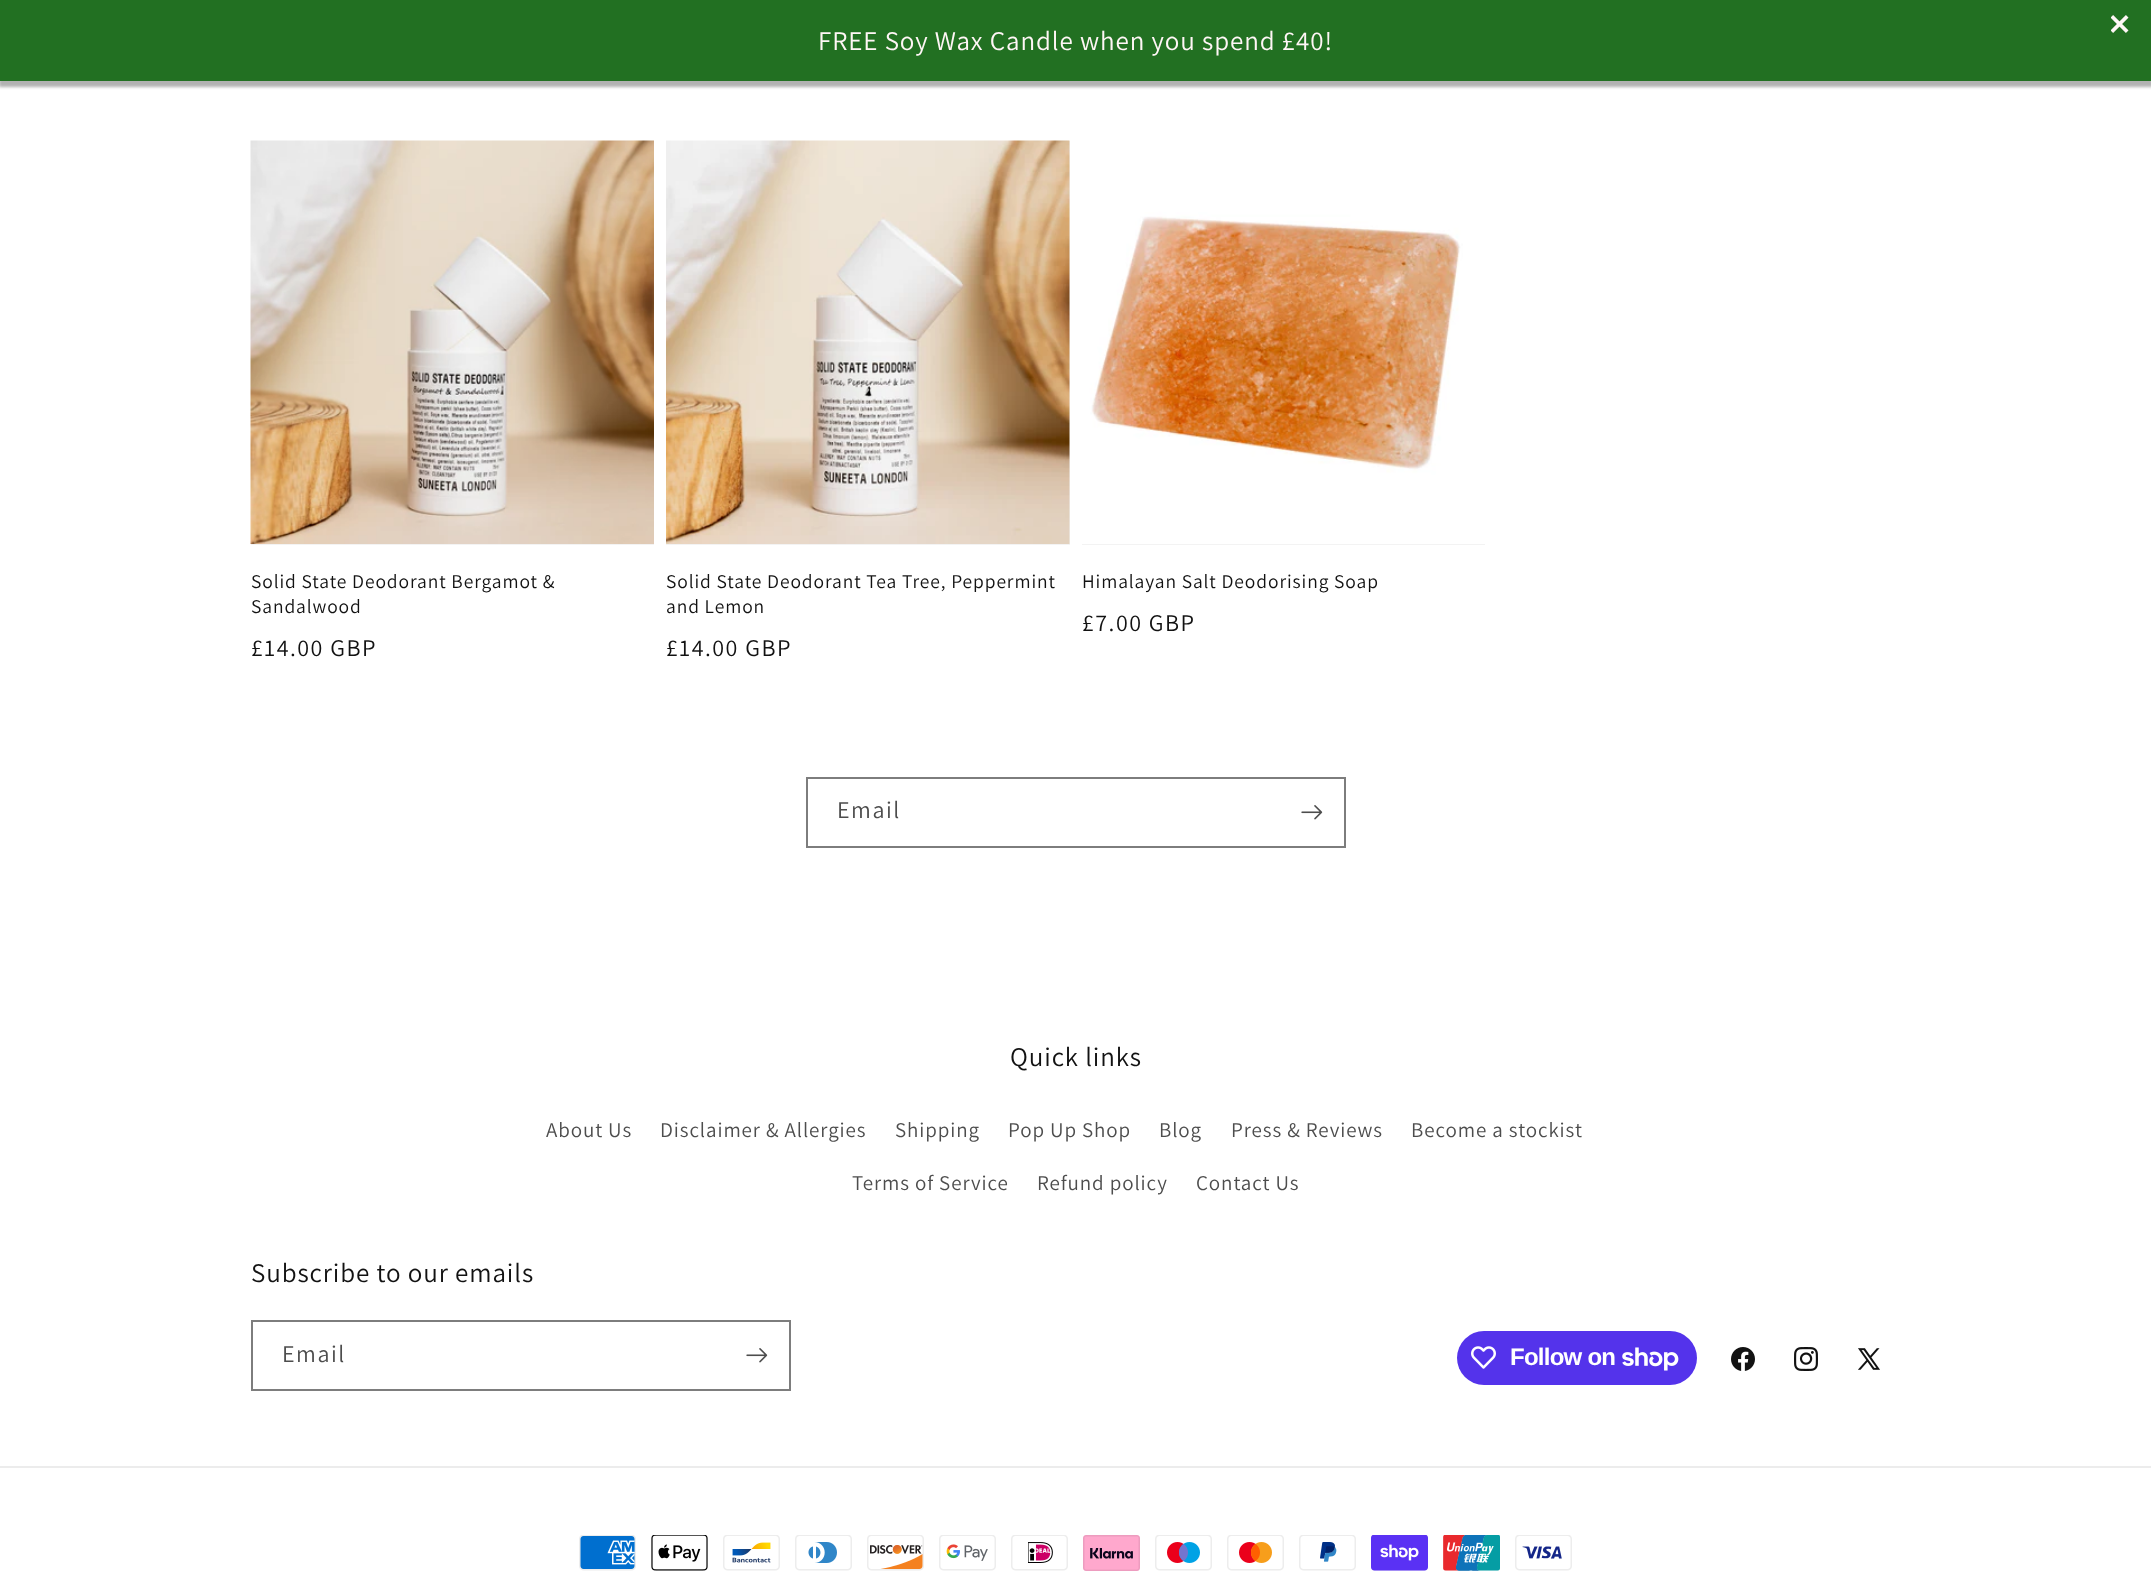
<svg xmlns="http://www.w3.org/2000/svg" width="2151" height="1593">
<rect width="100%" height="100%" fill="#fff"/>
<rect x="-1" y="3" width="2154" height="84" fill="#0000004d" filter="blur(1.5px)"/>
<rect width="2151" height="81" fill="#227022"/>
<image x="2111" y="15" width="18" height="18" href="media/1.png"/>
<text x="818" y="50" style="font-family:Assistant;font-size:27px;letter-spacing:0.9px;fill:#fff6f6">FREE Soy Wax Candle when you spend £40!</text>
<rect x="251" y="544" width="403" height="1" fill="#f3f3f3"/>
<image x="250" y="140" width="404" height="404" href="media/2.png"/>
<text x="251" y="588" style="font-family:Assistant;font-size:19.5px;letter-spacing:0.9px;fill:#121212">Solid State Deodorant Bergamot &amp;</text>
<text x="251" y="613" style="font-family:Assistant;font-size:19.5px;letter-spacing:0.9px;fill:#121212">Sandalwood</text>
<text x="251" y="656" style="font-family:Assistant;font-size:24px;letter-spacing:1.5px;fill:#121212">£14.00 GBP</text>
<rect x="666" y="141" width="404" height="404" fill="#f3f3f3"/>
<image x="666" y="140" width="404" height="404" href="media/3.png"/>
<text x="666" y="588" style="font-family:Assistant;font-size:19.5px;letter-spacing:0.9px;fill:#121212">Solid State Deodorant Tea Tree, Peppermint</text>
<text x="666" y="613" style="font-family:Assistant;font-size:19.5px;letter-spacing:0.9px;fill:#121212">and Lemon</text>
<text x="666" y="656" style="font-family:Assistant;font-size:24px;letter-spacing:1.5px;fill:#121212">£14.00 GBP</text>
<rect x="1082" y="544" width="403" height="1" fill="#f3f3f3"/>
<image x="1082" y="141" width="403" height="403" href="media/4.png"/>
<text x="1082" y="588" style="font-family:Assistant;font-size:19.5px;letter-spacing:0.9px;fill:#121212">Himalayan Salt Deodorising Soap</text>
<text x="1082" y="631" style="font-family:Assistant;font-size:24px;letter-spacing:1.5px;fill:#121212">£7.00 GBP</text>
<rect x="807" y="778" width="538" height="69" fill="none" stroke="#7d7d7d" stroke-width="2"/>
<text x="837" y="818" style="font-family:Assistant;font-size:24px;letter-spacing:1.5px;fill:#4d4d4d">Email</text>
<image x="1301" y="805" width="22" height="15" href="media/5.png"/>
<text x="1010" y="1066" style="font-family:Assistant;font-size:27px;letter-spacing:0.9px;fill:#121212">Quick links</text>
<text x="546" y="1137" style="font-family:Assistant;font-size:21px;letter-spacing:0.9px;fill:#4d4d4d">About Us</text>
<text x="660" y="1137" style="font-family:Assistant;font-size:21px;letter-spacing:0.9px;fill:#4d4d4d">Disclaimer &amp; Allergies</text>
<text x="895" y="1137" style="font-family:Assistant;font-size:21px;letter-spacing:0.9px;fill:#4d4d4d">Shipping</text>
<text x="1008" y="1137" style="font-family:Assistant;font-size:21px;letter-spacing:0.9px;fill:#4d4d4d">Pop Up Shop</text>
<text x="1159" y="1137" style="font-family:Assistant;font-size:21px;letter-spacing:0.9px;fill:#4d4d4d">Blog</text>
<text x="1231" y="1137" style="font-family:Assistant;font-size:21px;letter-spacing:0.9px;fill:#4d4d4d">Press &amp; Reviews</text>
<text x="1411" y="1137" style="font-family:Assistant;font-size:21px;letter-spacing:0.9px;fill:#4d4d4d">Become a stockist</text>
<text x="852" y="1190" style="font-family:Assistant;font-size:21px;letter-spacing:0.9px;fill:#4d4d4d">Terms of Service</text>
<text x="1037" y="1190" style="font-family:Assistant;font-size:21px;letter-spacing:0.9px;fill:#4d4d4d">Refund policy</text>
<text x="1196" y="1190" style="font-family:Assistant;font-size:21px;letter-spacing:0.9px;fill:#4d4d4d">Contact Us</text>
<text x="251" y="1282" style="font-family:Assistant;font-size:27px;letter-spacing:0.9px;fill:#121212">Subscribe to our emails</text>
<rect x="252" y="1321" width="538" height="69" fill="none" stroke="#7d7d7d" stroke-width="2"/>
<text x="282" y="1362" style="font-family:Assistant;font-size:24px;letter-spacing:1.5px;fill:#4d4d4d">Email</text>
<image x="746" y="1348" width="22" height="15" href="media/5.png"/>
<rect x="1457" y="1331" width="240" height="54" rx="27" fill="#5433eb"/>
<image x="1471" y="1346" width="25" height="23" href="media/6.png"/>
<text x="1510" y="1365" style="font-family:Liberation Sans;font-size:24px;font-weight:bold;letter-spacing:-0.75px;fill:#fff">Follow on</text>
<image x="1622" y="1347" width="57" height="24" href="media/7.png"/>
<image x="1731" y="1347" width="24" height="24" href="media/8.png"/>
<image x="1794" y="1347" width="24" height="24" href="media/9.png"/>
<image x="1858" y="1348" width="22" height="22" href="media/10.png"/>
<rect y="1466" width="2151" height="2" fill="#ececec"/>
<image x="579" y="1535" width="57" height="36" href="media/11.png"/>
<image x="651" y="1535" width="57" height="36" href="media/12.png"/>
<image x="723" y="1535" width="57" height="36" href="media/13.png"/>
<image x="795" y="1535" width="57" height="36" href="media/14.png"/>
<image x="867" y="1535" width="57" height="36" href="media/15.png"/>
<image x="939" y="1535" width="57" height="36" href="media/16.png"/>
<image x="1011" y="1535" width="57" height="36" href="media/17.png"/>
<image x="1083" y="1535" width="57" height="36" href="media/18.png"/>
<image x="1155" y="1535" width="57" height="36" href="media/19.png"/>
<image x="1227" y="1535" width="57" height="36" href="media/20.png"/>
<image x="1299" y="1535" width="57" height="36" href="media/21.png"/>
<image x="1371" y="1535" width="57" height="36" href="media/22.png"/>
<image x="1443" y="1535" width="57" height="36" href="media/23.png"/>
<image x="1515" y="1535" width="57" height="36" href="media/24.png"/>
</svg>
